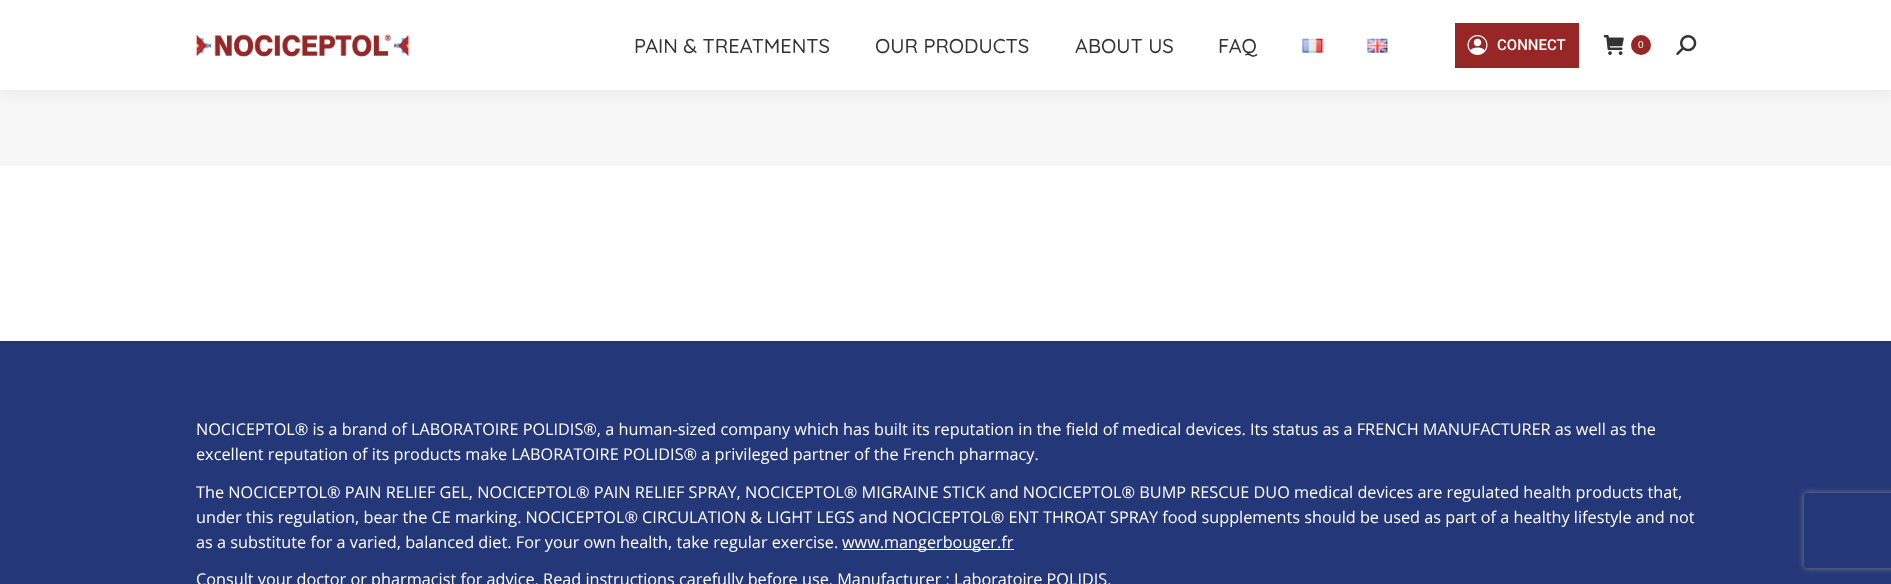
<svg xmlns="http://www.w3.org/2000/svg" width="1891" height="584">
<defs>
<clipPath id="clip1"><path d="M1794 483h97v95h-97zm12.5 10h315c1.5 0 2.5 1 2.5 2.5v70c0 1.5-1 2.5-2.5 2.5h-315c-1.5 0-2.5-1-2.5-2.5v-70c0-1.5 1-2.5 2.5-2.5z" clip-rule="evenodd"/></clipPath>
</defs>
<rect width="100%" height="100%" fill="#fff"/>
<rect y="90" width="1891" height="76" fill="#f7f7f7"/>
<rect x="-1" y="-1" width="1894" height="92" fill="#00000012" filter="blur(9.5px)"/>
<rect width="1891" height="90" fill="#fff"/>
<image x="196" y="34" width="213" height="23" href="media/1.png"/>
<text x="634" y="53" style="font-family:Quicksand;font-size:20px;font-weight:500;fill:#333">PAIN &amp; TREATMENTS</text>
<text x="875" y="53" style="font-family:Quicksand;font-size:20px;font-weight:500;fill:#333">OUR PRODUCTS</text>
<text x="1075" y="53" style="font-family:Quicksand;font-size:20px;font-weight:500;fill:#333">ABOUT US</text>
<text x="1218" y="53" style="font-family:Quicksand;font-size:20px;font-weight:500;fill:#333">FAQ</text>
<image x="1302" y="38" width="22" height="15" href="media/2.png"/>
<image x="1367" y="38" width="21" height="15" href="media/3.png"/>
<rect x="1455" y="23" width="124" height="45" fill="#972727"/>
<image x="1467" y="35" width="21" height="20" href="media/4.png"/>
<text x="1497" y="50" style="font-family:Roboto;font-size:15px;font-weight:500;fill:#fff">CONNECT</text>
<image x="1603" y="35" width="21" height="20" href="media/5.png"/>
<circle cx="1641" cy="45" r="10" fill="#972727"/>
<text x="1638" y="48" style="font-family:Liberation Sans;font-size:10px;fill:#fff">0</text>
<image x="1676" y="35" width="21" height="20" href="media/6.png"/>
<rect y="341" width="1891" height="243" fill="#243778"/>
<text x="196" y="435" style="font-family:Open Sans;font-size:16.25px;fill:#fff">NOCICEPTOL® is a brand of LABORATOIRE POLIDIS®, a human-sized company which has built its reputation in the field of medical devices. Its status as a FRENCH MANUFACTURER as well as the</text>
<text x="196" y="460" style="font-family:Open Sans;font-size:16.25px;fill:#fff">excellent reputation of its products make LABORATOIRE POLIDIS® a privileged partner of the French pharmacy.</text>
<text x="196" y="498" style="font-family:Open Sans;font-size:16.25px;fill:#fff">The NOCICEPTOL® PAIN RELIEF GEL, NOCICEPTOL® PAIN RELIEF SPRAY, NOCICEPTOL® MIGRAINE STICK and NOCICEPTOL® BUMP RESCUE DUO medical devices are regulated health products that,</text>
<text x="196" y="523" style="font-family:Open Sans;font-size:16.25px;fill:#fff">under this regulation, bear the CE marking. NOCICEPTOL® CIRCULATION &amp; LIGHT LEGS and NOCICEPTOL® ENT THROAT SPRAY food supplements should be used as part of a healthy lifestyle and not</text>
<text x="196" y="548" style="font-family:Open Sans;font-size:16.25px;fill:#fff">as a substitute for a varied, balanced diet. For your own health, take regular exercise.</text>
<rect x="843" y="549" width="171" height="1" fill="#fff"/>
<text x="842" y="548" style="font-family:Open Sans;font-size:16.25px;fill:#fff">www.mangerbouger.fr</text>
<text x="196" y="585" style="font-family:Open Sans;font-size:16.25px;fill:#fff">Consult your doctor or pharmacist for advice. Read instructions carefully before use. Manufacturer : Laboratoire POLIDIS.</text>
<g clip-path="url(#clip1)">
<rect x="1804" y="493" width="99" height="75" rx="2.5" fill="#808080" filter="blur(3px)"/>
</g>
</svg>
